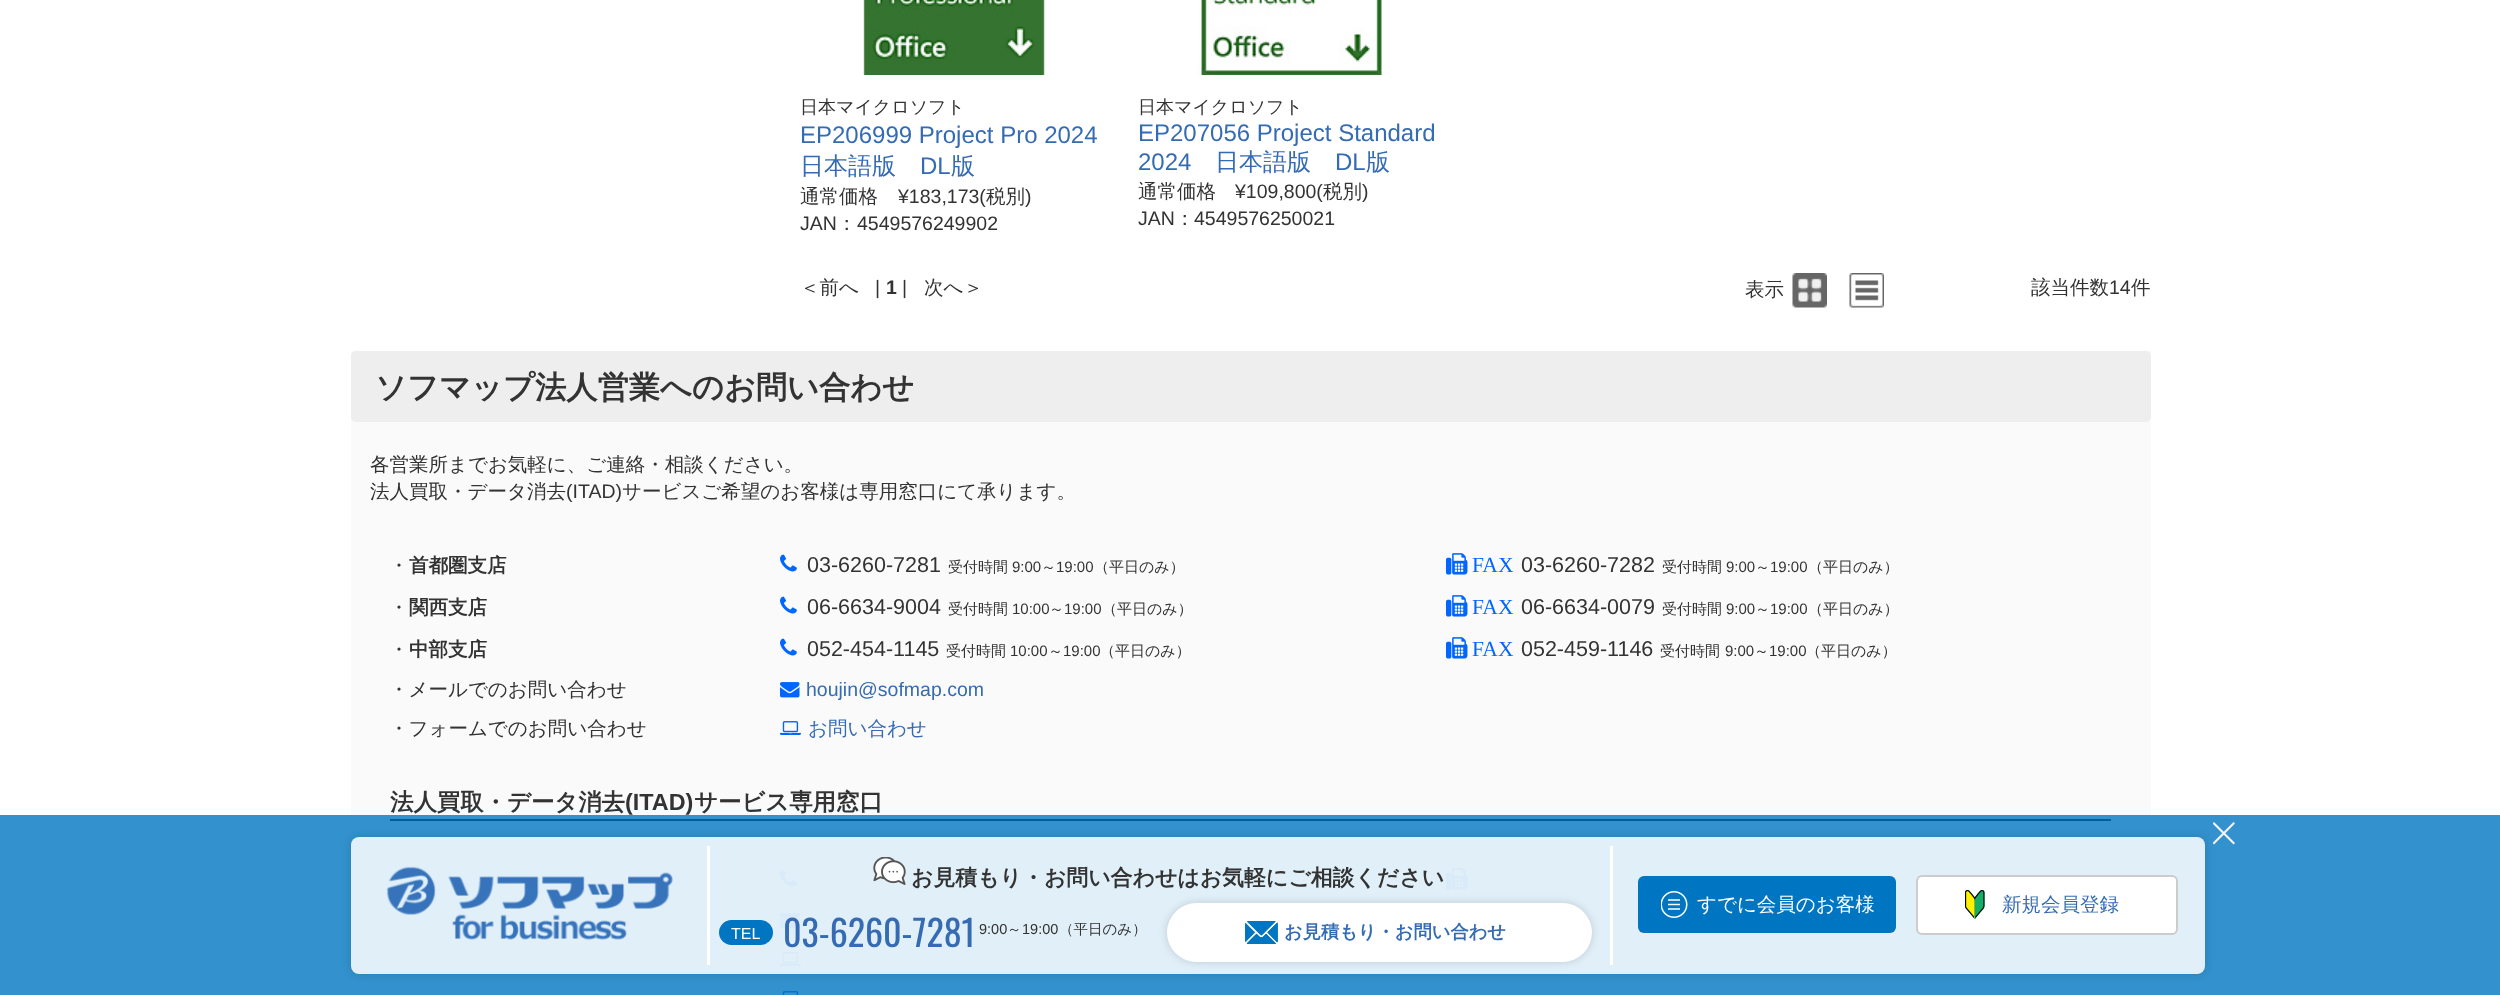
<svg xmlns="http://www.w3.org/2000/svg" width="2500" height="995">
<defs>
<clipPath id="clip1"><path d="M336 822h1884v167h-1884zm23 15h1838c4.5 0 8 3.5 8 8v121c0 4.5-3.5 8-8 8h-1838c-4.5 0-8-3.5-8-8v-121c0-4.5 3.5-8 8-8z" clip-rule="evenodd"/></clipPath>
</defs>
<rect width="100%" height="100%" fill="#fff"/>
<rect y="815" width="2500" height="180" fill="#3391cd"/>
<image x="863" y="0" width="182" height="75" href="media/1.png"/>
<text x="800" y="113" style="font-family:WenQuanYi Zen Hei;font-size:18px;font-weight:500;fill:#333">日本マイクロソフト</text>
<text x="800" y="143" style="font-family:Liberation Sans;font-size:24px;fill:#356bb3">EP206999 Project Pro 2024</text>
<text x="800" y="174" style="font-family:WenQuanYi Zen Hei;font-size:24px;font-weight:500;fill:#356bb3">日本語版</text>
<text x="920" y="174" style="font-family:Liberation Sans;font-size:24px;fill:#356bb3">DL</text>
<text x="951" y="174" style="font-family:WenQuanYi Zen Hei;font-size:24px;font-weight:500;fill:#356bb3">版</text>
<text x="800" y="203" style="font-family:WenQuanYi Zen Hei;font-size:19.5px;font-weight:500;fill:#333">通常価格</text>
<text x="898" y="203" style="font-family:Liberation Sans;font-size:19.5px;fill:#333">¥183,173(</text>
<text x="986" y="203" style="font-family:WenQuanYi Zen Hei;font-size:19.5px;font-weight:500;fill:#333">税別</text>
<text x="1025" y="203" style="font-family:Liberation Sans;font-size:19.5px;fill:#333">)</text>
<text x="800" y="230" style="font-family:Liberation Sans;font-size:19.5px;fill:#333">JAN</text>
<text x="837" y="230" style="font-family:WenQuanYi Zen Hei;font-size:19.5px;font-weight:500;fill:#333">：</text>
<text x="857" y="230" style="font-family:Liberation Sans;font-size:19.5px;fill:#333">4549576249902</text>
<image x="1197" y="0" width="189" height="75" href="media/2.png"/>
<text x="1138" y="113" style="font-family:WenQuanYi Zen Hei;font-size:18px;font-weight:500;fill:#333">日本マイクロソフト</text>
<text x="1138" y="141" style="font-family:Liberation Sans;font-size:24px;fill:#356bb3">EP207056 Project Standard</text>
<text x="1138" y="170" style="font-family:Liberation Sans;font-size:24px;fill:#356bb3">2024</text>
<text x="1215" y="170" style="font-family:WenQuanYi Zen Hei;font-size:24px;font-weight:500;fill:#356bb3">日本語版</text>
<text x="1335" y="170" style="font-family:Liberation Sans;font-size:24px;fill:#356bb3">DL</text>
<text x="1366" y="170" style="font-family:WenQuanYi Zen Hei;font-size:24px;font-weight:500;fill:#356bb3">版</text>
<text x="1138" y="198" style="font-family:WenQuanYi Zen Hei;font-size:19.5px;font-weight:500;fill:#333">通常価格</text>
<text x="1235" y="198" style="font-family:Liberation Sans;font-size:19.5px;fill:#333">¥109,800(</text>
<text x="1323" y="198" style="font-family:WenQuanYi Zen Hei;font-size:19.5px;font-weight:500;fill:#333">税別</text>
<text x="1362" y="198" style="font-family:Liberation Sans;font-size:19.5px;fill:#333">)</text>
<text x="1138" y="225" style="font-family:Liberation Sans;font-size:19.5px;fill:#333">JAN</text>
<text x="1175" y="225" style="font-family:WenQuanYi Zen Hei;font-size:19.5px;font-weight:500;fill:#333">：</text>
<text x="1194" y="225" style="font-family:Liberation Sans;font-size:19.5px;fill:#333">4549576250021</text>
<text x="800" y="294" style="font-family:WenQuanYi Zen Hei;font-size:19.5px;font-weight:500;fill:#333">＜前へ</text>
<text x="875" y="294" style="font-family:Liberation Sans;font-size:19.5px;fill:#333">|</text>
<text x="886" y="294" style="font-family:Liberation Sans;font-size:19.5px;font-weight:bold;fill:#333">1</text>
<text x="902" y="294" style="font-family:Liberation Sans;font-size:19.5px;fill:#333">|</text>
<text x="924" y="294" style="font-family:WenQuanYi Zen Hei;font-size:19.5px;font-weight:500;fill:#333">次へ＞</text>
<text x="1745" y="296" style="font-family:WenQuanYi Zen Hei;font-size:19.5px;font-weight:500;fill:#333">表示</text>
<image x="1792" y="273" width="35" height="35" href="media/3.png"/>
<image x="1849" y="273" width="35" height="35" href="media/4.png"/>
<text x="2031" y="294" style="font-family:WenQuanYi Zen Hei;font-size:19.5px;font-weight:500;fill:#333">該当件数</text>
<text x="2109" y="294" style="font-family:Liberation Sans;font-size:19.5px;fill:#333">14</text>
<text x="2131" y="294" style="font-family:WenQuanYi Zen Hei;font-size:19.5px;font-weight:500;fill:#333">件</text>
<rect x="351" y="351" width="1800" height="464" fill="#fafafa"/>
<rect x="351" y="351" width="1800" height="71" rx="5" fill="#eee"/>
<text x="375" y="398" style="font-family:WenQuanYi Zen Hei;font-size:31.25px;font-weight:bold;fill:#333">ソフマップ法人営業へのお問い合わせ</text>
<text x="370" y="471" style="font-family:WenQuanYi Zen Hei;font-size:19.5px;font-weight:500;fill:#333">各営業所までお気軽に、ご連絡・相談ください。</text>
<text x="370" y="498" style="font-family:WenQuanYi Zen Hei;font-size:19.5px;font-weight:500;fill:#333">法人買取・データ消去</text>
<text x="566" y="498" style="font-family:Liberation Sans;font-size:19.5px;fill:#333">(ITAD)</text>
<text x="622" y="498" style="font-family:WenQuanYi Zen Hei;font-size:19.5px;font-weight:500;fill:#333">サービスご希望のお客様は専用窓口にて承ります。</text>
<text x="389" y="572" style="font-family:WenQuanYi Zen Hei;font-size:19.5px;font-weight:500;fill:#333">・</text>
<text x="409" y="572" style="font-family:WenQuanYi Zen Hei;font-size:19.5px;font-weight:bold;fill:#333">首都圏支店</text>
<image x="780" y="554" width="17" height="18" href="media/5.png"/>
<text x="807" y="572" style="font-family:Liberation Sans;font-size:21.5px;fill:#333">03-6260-7281</text>
<text x="948" y="572" style="font-family:WenQuanYi Zen Hei;font-size:15px;font-weight:500;fill:#333">受付時間</text>
<text x="1012" y="572" style="font-family:Liberation Sans;font-size:15px;fill:#333">9:00</text>
<text x="1041" y="572" style="font-family:WenQuanYi Zen Hei;font-size:15px;font-weight:500;fill:#333">～</text>
<text x="1056" y="572" style="font-family:Liberation Sans;font-size:15px;fill:#333">19:00</text>
<text x="1094" y="572" style="font-family:WenQuanYi Zen Hei;font-size:15px;font-weight:500;fill:#333">（平日のみ）</text>
<image x="1446" y="553" width="22" height="22" href="media/6.png"/>
<text x="1472" y="572" style="font-family:Liberation Serif;font-size:21.5px;fill:#06f">FAX</text>
<text x="1521" y="572" style="font-family:Liberation Sans;font-size:21.5px;fill:#333">03-6260-7282</text>
<text x="1662" y="572" style="font-family:WenQuanYi Zen Hei;font-size:15px;font-weight:500;fill:#333">受付時間</text>
<text x="1726" y="572" style="font-family:Liberation Sans;font-size:15px;fill:#333">9:00</text>
<text x="1755" y="572" style="font-family:WenQuanYi Zen Hei;font-size:15px;font-weight:500;fill:#333">～</text>
<text x="1770" y="572" style="font-family:Liberation Sans;font-size:15px;fill:#333">19:00</text>
<text x="1808" y="572" style="font-family:WenQuanYi Zen Hei;font-size:15px;font-weight:500;fill:#333">（平日のみ）</text>
<text x="389" y="614" style="font-family:WenQuanYi Zen Hei;font-size:19.5px;font-weight:500;fill:#333">・</text>
<text x="409" y="614" style="font-family:WenQuanYi Zen Hei;font-size:19.5px;font-weight:bold;fill:#333">関西支店</text>
<image x="780" y="596" width="17" height="18" href="media/5.png"/>
<text x="807" y="614" style="font-family:Liberation Sans;font-size:21.5px;fill:#333">06-6634-9004</text>
<text x="948" y="614" style="font-family:WenQuanYi Zen Hei;font-size:15px;font-weight:500;fill:#333">受付時間</text>
<text x="1012" y="614" style="font-family:Liberation Sans;font-size:15px;fill:#333">10:00</text>
<text x="1049" y="614" style="font-family:WenQuanYi Zen Hei;font-size:15px;font-weight:500;fill:#333">～</text>
<text x="1064" y="614" style="font-family:Liberation Sans;font-size:15px;fill:#333">19:00</text>
<text x="1102" y="614" style="font-family:WenQuanYi Zen Hei;font-size:15px;font-weight:500;fill:#333">（平日のみ）</text>
<image x="1446" y="595" width="22" height="22" href="media/6.png"/>
<text x="1472" y="614" style="font-family:Liberation Serif;font-size:21.5px;fill:#06f">FAX</text>
<text x="1521" y="614" style="font-family:Liberation Sans;font-size:21.5px;fill:#333">06-6634-0079</text>
<text x="1662" y="614" style="font-family:WenQuanYi Zen Hei;font-size:15px;font-weight:500;fill:#333">受付時間</text>
<text x="1726" y="614" style="font-family:Liberation Sans;font-size:15px;fill:#333">9:00</text>
<text x="1755" y="614" style="font-family:WenQuanYi Zen Hei;font-size:15px;font-weight:500;fill:#333">～</text>
<text x="1770" y="614" style="font-family:Liberation Sans;font-size:15px;fill:#333">19:00</text>
<text x="1808" y="614" style="font-family:WenQuanYi Zen Hei;font-size:15px;font-weight:500;fill:#333">（平日のみ）</text>
<text x="389" y="656" style="font-family:WenQuanYi Zen Hei;font-size:19.5px;font-weight:500;fill:#333">・</text>
<text x="409" y="656" style="font-family:WenQuanYi Zen Hei;font-size:19.5px;font-weight:bold;fill:#333">中部支店</text>
<image x="780" y="638" width="17" height="18" href="media/5.png"/>
<text x="807" y="656" style="font-family:Liberation Sans;font-size:21.5px;fill:#333">052-454-1145</text>
<text x="946" y="656" style="font-family:WenQuanYi Zen Hei;font-size:15px;font-weight:500;fill:#333">受付時間</text>
<text x="1010" y="656" style="font-family:Liberation Sans;font-size:15px;fill:#333">10:00</text>
<text x="1048" y="656" style="font-family:WenQuanYi Zen Hei;font-size:15px;font-weight:500;fill:#333">～</text>
<text x="1063" y="656" style="font-family:Liberation Sans;font-size:15px;fill:#333">19:00</text>
<text x="1100" y="656" style="font-family:WenQuanYi Zen Hei;font-size:15px;font-weight:500;fill:#333">（平日のみ）</text>
<image x="1446" y="637" width="22" height="22" href="media/6.png"/>
<text x="1472" y="656" style="font-family:Liberation Serif;font-size:21.5px;fill:#06f">FAX</text>
<text x="1521" y="656" style="font-family:Liberation Sans;font-size:21.5px;fill:#333">052-459-1146</text>
<text x="1660" y="656" style="font-family:WenQuanYi Zen Hei;font-size:15px;font-weight:500;fill:#333">受付時間</text>
<text x="1725" y="656" style="font-family:Liberation Sans;font-size:15px;fill:#333">9:00</text>
<text x="1754" y="656" style="font-family:WenQuanYi Zen Hei;font-size:15px;font-weight:500;fill:#333">～</text>
<text x="1769" y="656" style="font-family:Liberation Sans;font-size:15px;fill:#333">19:00</text>
<text x="1806" y="656" style="font-family:WenQuanYi Zen Hei;font-size:15px;font-weight:500;fill:#333">（平日のみ）</text>
<text x="389" y="696" style="font-family:WenQuanYi Zen Hei;font-size:19.5px;font-weight:500;fill:#333">・メールでのお問い合わせ</text>
<image x="780" y="682" width="20" height="16" href="media/7.png"/>
<text x="806" y="696" style="font-family:Liberation Sans;font-size:19.5px;fill:#356bb3">houjin@sofmap.com</text>
<text x="389" y="735" style="font-family:WenQuanYi Zen Hei;font-size:19.5px;font-weight:500;fill:#333">・フォームでのお問い合わせ</text>
<image x="780" y="721" width="21" height="14" href="media/8.png"/>
<text x="808" y="735" style="font-family:WenQuanYi Zen Hei;font-size:19.5px;font-weight:500;fill:#356bb3">お問い合わせ</text>
<rect x="390" y="819" width="1721" height="2" fill="#005e9a"/>
<text x="390" y="810" style="font-family:WenQuanYi Zen Hei;font-size:23.4px;font-weight:bold;fill:#333">法人買取・データ消去</text>
<text x="625" y="810" style="font-family:Liberation Sans;font-size:23.4px;font-weight:bold;fill:#333">(ITAD)</text>
<text x="694" y="810" style="font-family:WenQuanYi Zen Hei;font-size:23.4px;font-weight:bold;fill:#333">サービス専用窓口</text>
<image x="780" y="869" width="17" height="18" href="media/9.png"/>
<image x="1446" y="868" width="22" height="22" href="media/10.png"/>
<image x="780" y="913" width="20" height="16" href="media/11.png"/>
<image x="780" y="952" width="21" height="14" href="media/12.png"/>
<image x="782" y="991" width="17" height="4" href="media/13.png"/>
<g clip-path="url(#clip1)">
<rect x="351" y="837" width="1854" height="137" rx="8" fill="#00000026" filter="blur(4.5px)"/>
</g>
<rect x="351" y="837" width="1854" height="137" rx="8" fill="#ffffffd9"/>
<image x="2213" y="822" width="22" height="23" href="media/14.png"/>
<image x="386" y="866" width="287" height="74" href="media/15.png"/>
<rect x="1610" y="846" width="3" height="119" fill="#fff"/>
<rect x="707" y="846" width="3" height="119" fill="#fff"/>
<image x="873" y="857" width="33" height="28" href="media/16.png"/>
<text x="911" y="885" style="font-family:WenQuanYi Zen Hei;font-size:21.9px;font-weight:bold;fill:#333">お見積もり・お問い合わせはお気軽にご相談ください</text>
<rect x="719" y="920" width="54" height="25" rx="12.5" fill="#0075c1"/>
<text x="731" y="939" style="font-family:Liberation Sans;font-size:16px;fill:#fff">TEL</text>
<text x="783" y="947" style="font-family:Oswald;font-size:36px;fill:#356bb3">03-6260-7281</text>
<text x="979" y="934" style="font-family:Liberation Sans;font-size:14.5px;fill:#333">9:00</text>
<text x="1007" y="934" style="font-family:WenQuanYi Zen Hei;font-size:14.5px;font-weight:500;fill:#333">～</text>
<text x="1022" y="934" style="font-family:Liberation Sans;font-size:14.5px;fill:#333">19:00</text>
<text x="1059" y="934" style="font-family:WenQuanYi Zen Hei;font-size:14.5px;font-weight:500;fill:#333">（平日のみ）</text>
<rect x="1167" y="903" width="425" height="59" rx="29.5" fill="#00000026" filter="blur(4.5px)"/>
<rect x="1167" y="903" width="425" height="59" rx="29.5" fill="#fff"/>
<image x="1245" y="921" width="33" height="23" href="media/17.png"/>
<text x="1284" y="938" style="font-family:WenQuanYi Zen Hei;font-size:18.25px;font-weight:bold;fill:#356bb3">お見積もり・お問い合わせ</text>
<rect x="1638" y="876" width="258" height="57" rx="6" fill="#0075c1"/>
<image x="1661" y="891" width="27" height="27" href="media/18.png"/>
<text x="1697" y="911" style="font-family:WenQuanYi Zen Hei;font-size:19.5px;font-weight:500;fill:#fff">すでに会員のお客様</text>
<rect x="1917" y="876" width="260" height="58" rx="5" fill="#fff" stroke="#ccc" stroke-width="2"/>
<image x="1965" y="890" width="20" height="29" href="media/19.png"/>
<text x="2002" y="911" style="font-family:WenQuanYi Zen Hei;font-size:19.5px;font-weight:500;fill:#356bb3">新規会員登録</text>
</svg>
